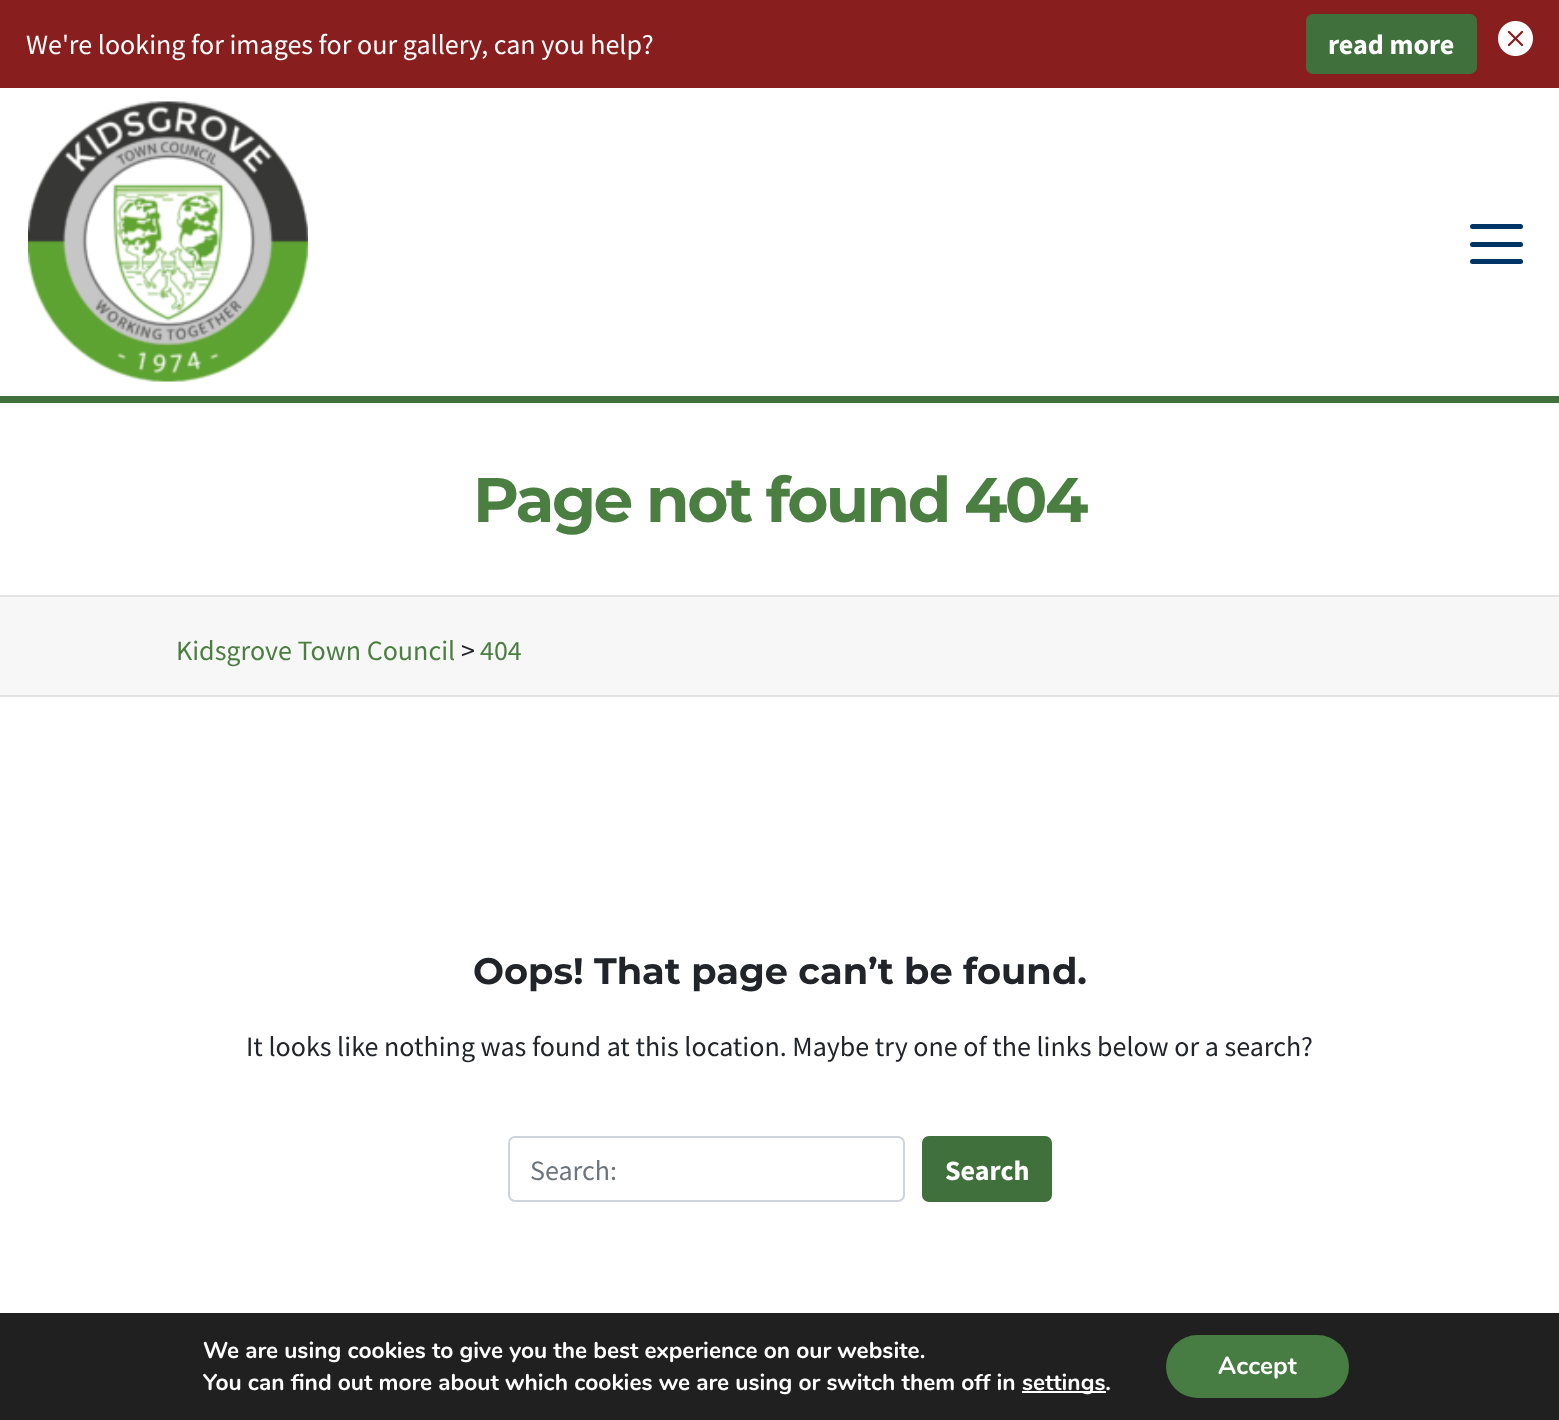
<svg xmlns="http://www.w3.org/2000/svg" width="1559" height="1420">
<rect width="100%" height="100%" fill="#fff"/>
<rect width="1559" height="88" fill="#891e1e"/>
<text x="26" y="54" style="font-family:Source Sans Pro;font-size:28px;fill:#fff">We're looking for images for our gallery, can you help?</text>
<rect x="1307" y="15" width="169" height="58" rx="6" fill="#40703c" stroke="#40703c" stroke-width="2"/>
<text x="1328" y="54" style="font-family:Source Sans Pro;font-size:28px;font-weight:bold;fill:#fff">read more</text>
<image x="1498" y="21" width="35" height="35" href="media/1.png"/>
<rect y="396" width="1559" height="7" fill="#40703c"/>
<image x="28" y="101" width="280" height="281" href="media/2.png"/>
<rect x="1470" y="224" width="53" height="5" rx="2.5" fill="#036"/>
<rect x="1470" y="242" width="53" height="5" rx="2.5" fill="#036"/>
<rect x="1470" y="259" width="53" height="5" rx="2.5" fill="#036"/>
<text x="473" y="522" style="font-family:Montserrat;font-size:63px;font-weight:bold;letter-spacing:-2.6px;fill:#4a7f41">Page not found 404</text>
<rect y="597" width="1559" height="98" fill="#f7f7f7"/>
<rect y="595" width="1559" height="2" fill="#e3e3e3"/>
<rect y="695" width="1559" height="2" fill="#e3e3e3"/>
<text x="176" y="660" style="font-family:Source Sans Pro;font-size:28px;fill:#4a7f41">Kidsgrove Town Council</text>
<text x="461" y="660" style="font-family:Source Sans Pro;font-size:28px;fill:#212529">&gt;</text>
<text x="480" y="660" style="font-family:Source Sans Pro;font-size:28px;fill:#4a7f41">404</text>
<text x="473" y="984" style="font-family:Montserrat;font-size:36.75px;font-weight:bold;fill:#212529">Oops! That page can’t be found.</text>
<text x="246" y="1056" style="font-family:Source Sans Pro;font-size:28px;fill:#212529">It looks like nothing was found at this location. Maybe try one of the links below or a search?</text>
<rect x="509" y="1137" width="395" height="64" rx="6" fill="none" stroke="#ced4da" stroke-width="2"/>
<text x="530" y="1180" style="font-family:Source Sans Pro;font-size:28px;fill:#6c757d">Search:</text>
<rect x="923" y="1137" width="128" height="64" rx="6" fill="#40703c" stroke="#40703c" stroke-width="2"/>
<text x="945" y="1180" style="font-family:Source Sans Pro;font-size:28px;font-weight:bold;fill:#fff">Search</text>
<rect y="1313" width="1559" height="107" fill="#202020"/>
<text x="203" y="1358" style="font-family:Nunito;font-size:22.75px;font-weight:bold;fill:#fff">We are using cookies to give you the best experience on our website.</text>
<text x="203" y="1390" style="font-family:Nunito;font-size:22.75px;font-weight:bold;fill:#fff">You can find out more about which cookies we are using or switch them off in</text>
<rect x="1022" y="1391" width="84" height="2" fill="#fff"/>
<text x="1022" y="1390" style="font-family:Nunito;font-size:22.75px;font-weight:bold;fill:#fff">settings.</text>
<rect x="1166" y="1335" width="183" height="63" rx="31.5" fill="#477c43"/>
<text x="1218" y="1374" style="font-family:Nunito;font-size:24.5px;font-weight:bold;fill:#fff">Accept</text>
</svg>
